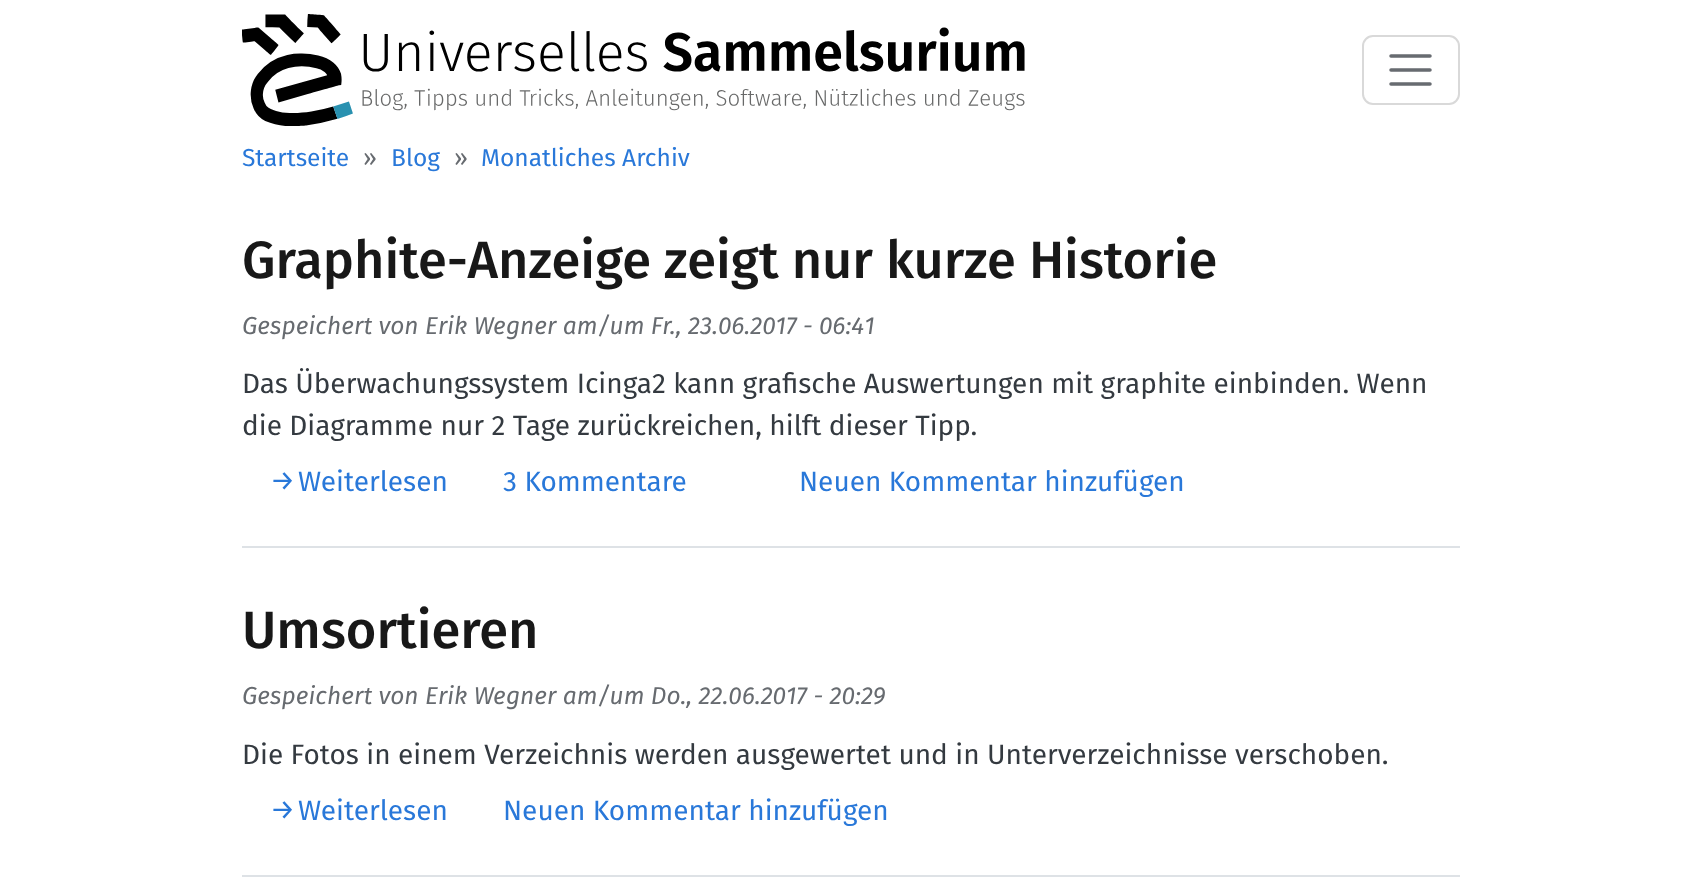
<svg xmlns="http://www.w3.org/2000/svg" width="1701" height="884">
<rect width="100%" height="100%" fill="#fff"/>
<image x="242" y="14" width="783" height="112" href="media/1.png"/>
<rect x="1363" y="36" width="96" height="68" rx="10" fill="none" stroke="#d9d9d9" stroke-width="2"/>
<path d="M1391 56h39m-39 14h39m-39 14h39" fill="none" stroke="#676b70" stroke-width="3.5" stroke-linecap="round"/>
<text x="242" y="166" style="font-family:Fira Sans;font-size:24.5px;fill:#2978d9">Startseite</text>
<text x="363" y="166" style="font-family:Fira Sans;font-size:24.5px;fill:#676b70">»</text>
<text x="391" y="166" style="font-family:Fira Sans;font-size:24.5px;fill:#2978d9">Blog</text>
<text x="454" y="166" style="font-family:Fira Sans;font-size:24.5px;fill:#676b70">»</text>
<text x="481" y="166" style="font-family:Fira Sans;font-size:24.5px;fill:#2978d9">Monatliches Archiv</text>
<rect x="242" y="546" width="1218" height="2" fill="#dee2e6"/>
<text x="242" y="278" style="font-family:Fira Sans;font-size:52.4px;font-weight:500;fill:#181818">Graphite-Anzeige zeigt nur kurze Historie</text>
<text x="242" y="334" style="font-family:Fira Sans;font-size:24.5px;font-style:italic;fill:#676b70">Gespeichert von Erik Wegner am/um Fr., 23.06.2017 - 06:41</text>
<text x="242" y="393" style="font-family:Fira Sans;font-size:28px;fill:#343a40">Das Überwachungssystem Icinga2 kann grafische Auswertungen mit graphite einbinden. Wenn</text>
<text x="242" y="435" style="font-family:Fira Sans;font-size:28px;fill:#343a40">die Diagramme nur 2 Tage zurückreichen, hilft dieser Tipp.</text>
<text x="270" y="490" style="font-family:Fira Sans;font-size:28px;fill:#2978d9">→</text>
<text x="298" y="491" style="font-family:Fira Sans;font-size:28px;fill:#2978d9">Weiterlesen</text>
<text x="503" y="491" style="font-family:Fira Sans;font-size:28px;fill:#2978d9">3 Kommentare</text>
<text x="799" y="491" style="font-family:Fira Sans;font-size:28px;fill:#2978d9">Neuen Kommentar hinzufügen</text>
<rect x="242" y="875" width="1218" height="2" fill="#dee2e6"/>
<text x="242" y="648" style="font-family:Fira Sans;font-size:52.4px;font-weight:500;fill:#181818">Umsortieren</text>
<text x="242" y="704" style="font-family:Fira Sans;font-size:24.5px;font-style:italic;fill:#676b70">Gespeichert von Erik Wegner am/um Do., 22.06.2017 - 20:29</text>
<text x="242" y="764" style="font-family:Fira Sans;font-size:28px;fill:#343a40">Die Fotos in einem Verzeichnis werden ausgewertet und in Unterverzeichnisse verschoben.</text>
<text x="270" y="819" style="font-family:Fira Sans;font-size:28px;fill:#2978d9">→</text>
<text x="298" y="820" style="font-family:Fira Sans;font-size:28px;fill:#2978d9">Weiterlesen</text>
<text x="503" y="820" style="font-family:Fira Sans;font-size:28px;fill:#2978d9">Neuen Kommentar hinzufügen</text>
</svg>
